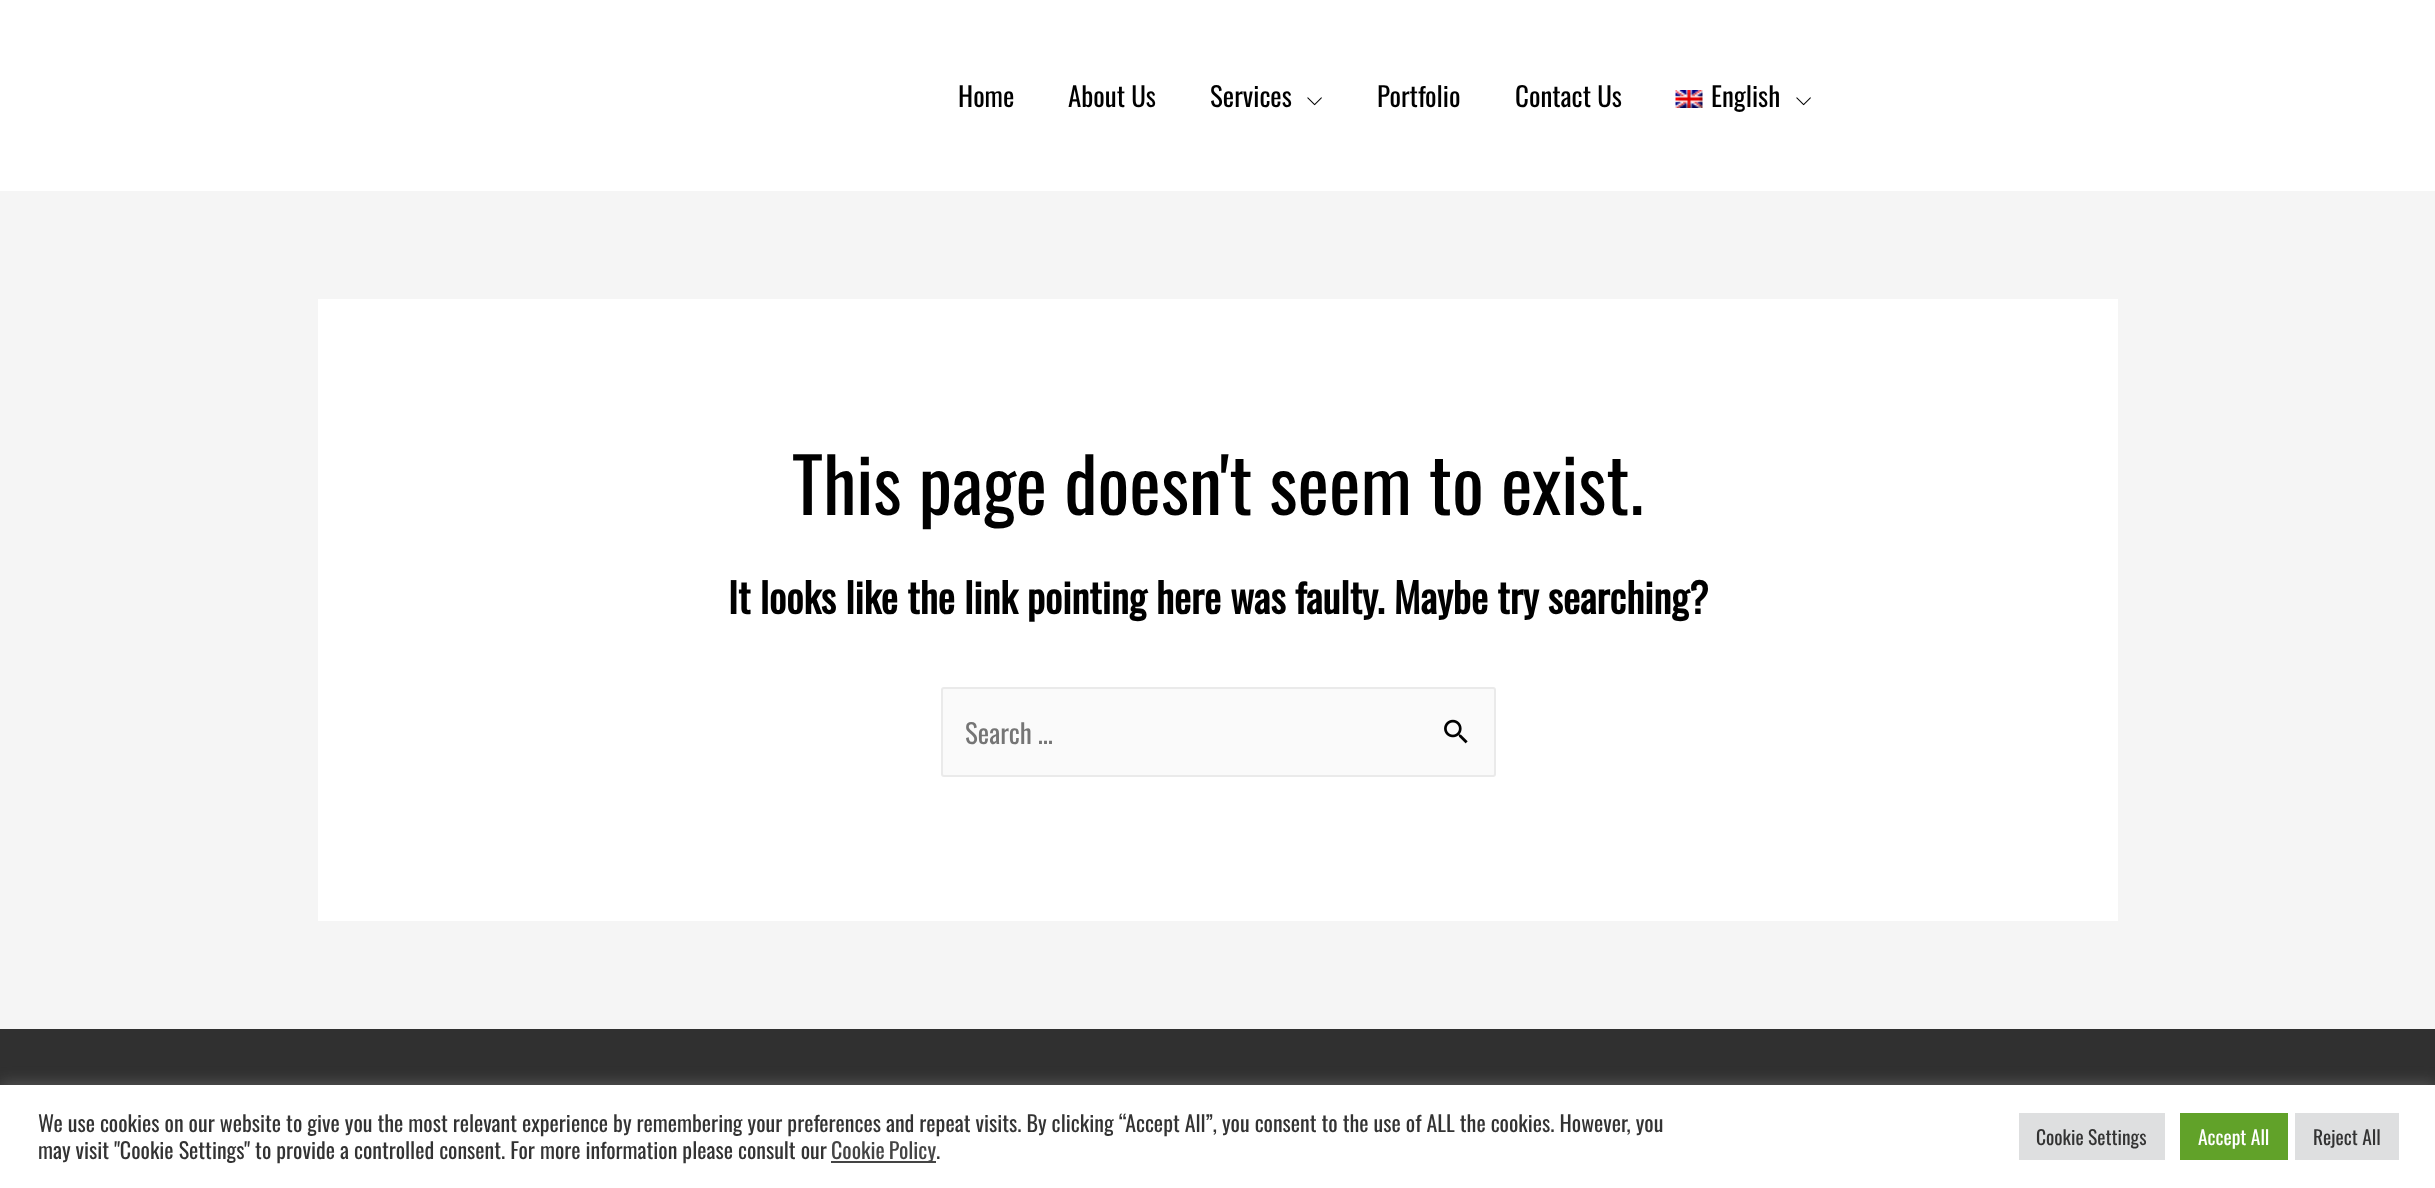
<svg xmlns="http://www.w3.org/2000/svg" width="2435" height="1188">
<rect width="100%" height="100%" fill="#f5f5f5"/>
<rect width="2435" height="191" fill="#fff"/>
<text x="958" y="107" style="font-family:Oswald;font-size:27px;fill:#000">Home</text>
<text x="1068" y="107" style="font-family:Oswald;font-size:27px;fill:#000">About Us</text>
<text x="1210" y="107" style="font-family:Oswald;font-size:27px;fill:#000">Services</text>
<image x="1307" y="97" width="15" height="9" href="media/1.png"/>
<text x="1377" y="107" style="font-family:Oswald;font-size:27px;fill:#000">Portfolio</text>
<text x="1515" y="107" style="font-family:Oswald;font-size:27px;fill:#000">Contact Us</text>
<image x="1675" y="90" width="28" height="18" href="media/2.png"/>
<text x="1711" y="107" style="font-family:Oswald;font-size:27px;fill:#000">English</text>
<image x="1796" y="97" width="15" height="9" href="media/1.png"/>
<rect x="318" y="299" width="1800" height="622" fill="#fff"/>
<text x="792" y="515" style="font-family:Oswald;font-size:75px;fill:#000">This page doesn't seem to exist.</text>
<text x="728" y="614" style="font-family:Oswald;font-size:40.5px;font-weight:bold;fill:#000">It looks like the link pointing here was faulty. Maybe try searching?</text>
<rect x="942" y="688" width="553" height="88" rx="2" fill="#fafafa" stroke="#eaeaea" stroke-width="2"/>
<text x="965" y="744" style="font-family:Oswald;font-size:27px;fill:#757575">Search …</text>
<image x="1444" y="719" width="24" height="25" href="media/3.png"/>
<rect y="1029" width="2435" height="56" fill="#303030"/>
<rect y="1083" width="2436" height="104" fill="#acabab4d" filter="blur(7.5px)"/>
<rect y="1085" width="2435" height="103" fill="#fff"/>
<text x="38" y="1132" style="font-family:Oswald;font-size:22px;fill:#333">We use cookies on our website to give you the most relevant experience by remembering your preferences and repeat visits. By clicking “Accept All”, you consent to the use of ALL the cookies. However, you</text>
<text x="38" y="1159" style="font-family:Oswald;font-size:22px;fill:#333">may visit "Cookie Settings" to provide a controlled consent. For more information please consult our</text>
<rect x="831" y="1161" width="105" height="2" fill="#444"/>
<text x="831" y="1159" word-spacing="-1" style="font-family:Oswald;font-size:22px;fill:#444">Cookie Policy</text>
<text x="936" y="1159" style="font-family:Oswald;font-size:22px;fill:#333">.</text>
<rect x="2019" y="1113" width="146" height="47" fill="#dedfe0"/>
<text x="2036" y="1145" style="font-family:Oswald;font-size:19.5px;fill:#333">Cookie Settings</text>
<rect x="2180" y="1113" width="108" height="47" fill="#61a229"/>
<text x="2198" y="1145" style="font-family:Oswald;font-size:19.5px;fill:#fff">Accept All</text>
<rect x="2295" y="1113" width="104" height="47" fill="#dedfe0"/>
<text x="2313" y="1145" style="font-family:Oswald;font-size:19.5px;fill:#333">Reject All</text>
</svg>
